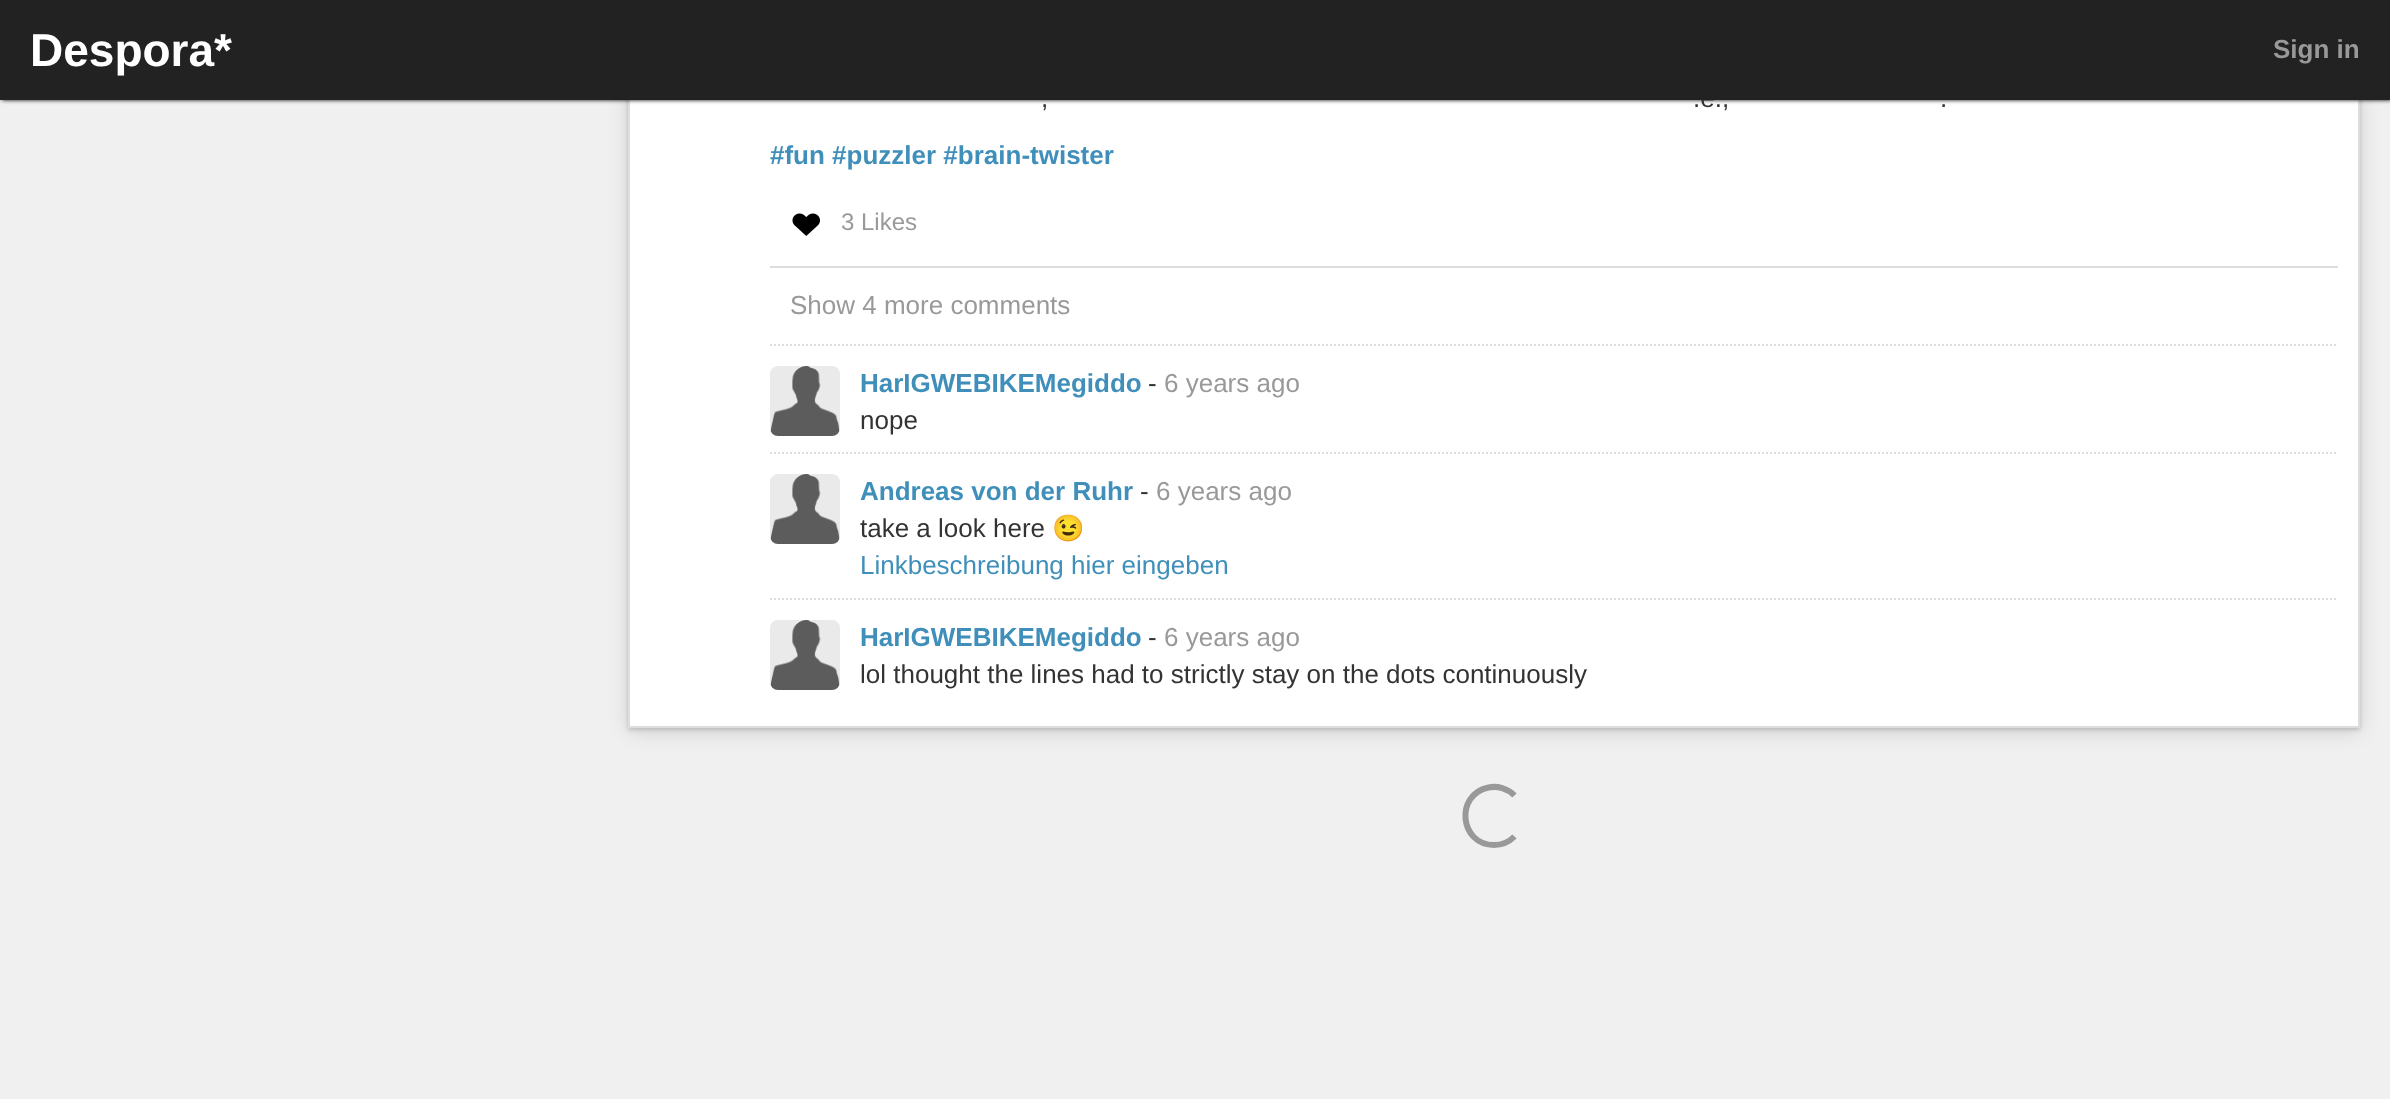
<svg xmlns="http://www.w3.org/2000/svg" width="2390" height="1099">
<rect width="100%" height="100%" fill="#f0f0f0"/>
<rect x="628" y="-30" width="1732" height="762" fill="#0000001f" filter="blur(10px)"/>
<rect x="628" y="-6" width="1732" height="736" fill="#00000029" filter="blur(2px)"/>
<rect x="630" y="100" width="1728" height="626" fill="#fff"/>
<rect x="629" y="-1" width="1730" height="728" fill="none" stroke="#ddd" stroke-width="2"/>
<rect x="2" width="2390" height="100" fill="#000" filter="blur(2px)"/>
<text x="1693" y="107" style="font-family:Liberation Sans;font-size:26px;fill:#333">.e.,</text>
<rect width="2390" height="100" fill="#222"/>
<text x="30" y="66" style="font-family:Liberation Sans;font-size:46px;font-weight:bold;fill:#fff">Despora*</text>
<text x="2273" y="58" style="font-family:Liberation Sans;font-size:26px;font-weight:bold;fill:#999">Sign in</text>
<text x="1041" y="107" style="font-family:Liberation Sans;font-size:26px;fill:#333">,</text>
<text x="1940" y="107" style="font-family:Liberation Sans;font-size:26px;fill:#333">.</text>
<text x="770" y="164" style="font-family:Liberation Sans;font-size:26px;font-weight:bold;fill:#3f8fba">#fun #puzzler #brain-twister</text>
<image x="792" y="213" width="28" height="23" href="media/1.png"/>
<text x="841" y="230" style="font-family:Liberation Sans;font-size:24px;fill:#999">3 Likes</text>
<rect x="770" y="266" width="1568" height="2" fill="#ddd"/>
<text x="790" y="314" style="font-family:Liberation Sans;font-size:26px;fill:#999">Show 4 more comments</text>
<path d="M770 345h1568" fill="none" stroke="#ddd" stroke-width="2" stroke-dasharray="2 2"/>
<image x="770" y="366" width="70" height="70" href="media/2.png"/>
<text x="860" y="392" style="font-family:Liberation Sans;font-size:26px;font-weight:bold;fill:#3f8fba">HarIGWEBIKEMegiddo</text>
<text x="1148" y="392" style="font-family:Liberation Sans;font-size:26px;fill:#333">-</text>
<text x="1164" y="392" style="font-family:Liberation Sans;font-size:26px;fill:#999">6 years ago</text>
<text x="860" y="429" style="font-family:Liberation Sans;font-size:26px;fill:#333">nope</text>
<path d="M770 453h1568" fill="none" stroke="#ddd" stroke-width="2" stroke-dasharray="2 2"/>
<image x="770" y="474" width="70" height="70" href="media/2.png"/>
<text x="860" y="500" style="font-family:Liberation Sans;font-size:26px;font-weight:bold;fill:#3f8fba">Andreas von der Ruhr</text>
<text x="1140" y="500" style="font-family:Liberation Sans;font-size:26px;fill:#333">-</text>
<text x="1156" y="500" style="font-family:Liberation Sans;font-size:26px;fill:#999">6 years ago</text>
<text x="860" y="537" style="font-family:Liberation Sans;font-size:26px;fill:#333">take a look here</text>
<text x="1052" y="537" style="font-family:Noto Color Emoji;font-size:26px;fill:#333">😉</text>
<text x="860" y="574" style="font-family:Liberation Sans;font-size:26px;fill:#3f8fba">Linkbeschreibung hier eingeben</text>
<path d="M770 599h1568" fill="none" stroke="#ddd" stroke-width="2" stroke-dasharray="2 2"/>
<image x="770" y="620" width="70" height="70" href="media/2.png"/>
<text x="860" y="646" style="font-family:Liberation Sans;font-size:26px;font-weight:bold;fill:#3f8fba">HarIGWEBIKEMegiddo</text>
<text x="1148" y="646" style="font-family:Liberation Sans;font-size:26px;fill:#333">-</text>
<text x="1164" y="646" style="font-family:Liberation Sans;font-size:26px;fill:#999">6 years ago</text>
<text x="860" y="683" style="font-family:Liberation Sans;font-size:26px;fill:#333">lol thought the lines had to strictly stay on the dots continuously</text>
<path d="M1514.5 836.5c-5.5 5.5-13 8.5-20.5 8.5c-34.5 0-39.5-50.5-5.5-57.5c9-2 19 1 26 8" fill="none" stroke="#999" stroke-width="6"/>
</svg>
